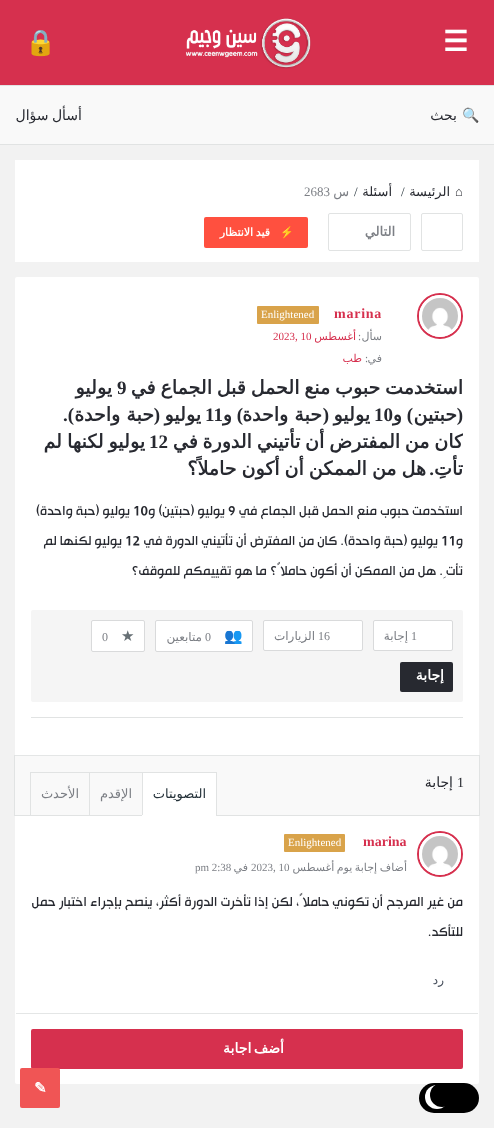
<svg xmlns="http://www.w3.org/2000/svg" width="494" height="1128">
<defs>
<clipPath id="clip1"><rect x="31" y="374" width="432" height="108"/></clipPath>
</defs>
<rect width="100%" height="100%" fill="#f2f2f2"/>
<rect width="494" height="85" fill="#d6304e"/>
<text x="443" y="51" style="font-family:DejaVu Sans;font-size:28px;font-weight:bold;letter-spacing:0.75px;fill:#fff">☰</text>
<image x="185" y="18" width="126" height="51" href="media/1.png"/>
<text x="25" y="51" style="font-family:Noto Color Emoji;font-size:25px;fill:#fff">🔒</text>
<rect y="86" width="494" height="58" fill="#f9f9f9"/>
<rect y="85" width="494" height="1" fill="#e1e3e3"/>
<rect y="144" width="494" height="1" fill="#e1e3e3"/>
<text x="462" y="120" style="font-family:Noto Color Emoji;font-size:14px;fill:#272930">🔍</text>
<text x="457" y="120" style="font-family:DejaVu Sans;font-size:14px;direction:rtl;fill:#272930">بحث</text>
<text x="82" y="120" word-spacing="-1" style="font-family:DejaVu Sans;font-size:14px;direction:rtl;fill:#272930">أسأل سؤال</text>
<rect x="15" y="160" width="464" height="102" fill="#fff"/>
<text x="455" y="196" style="font-family:Liberation Serif;font-size:13px;fill:#272930">⌂</text>
<text x="450" y="196" style="font-family:DejaVu Sans;font-size:13px;direction:rtl;fill:#272930">الرئيسة</text>
<text x="401" y="196" style="font-family:Liberation Serif;font-size:13px;fill:#26333b">/</text>
<text x="392" y="196" style="font-family:DejaVu Sans;font-size:13px;direction:rtl;fill:#272930">أسئلة</text>
<text x="354" y="196" style="font-family:Liberation Serif;font-size:13px;fill:#26333b">/</text>
<text x="349" y="196" style="font-family:DejaVu Sans;font-size:13px;direction:rtl;fill:#7c7f85">س</text>
<text x="304" y="196" style="font-family:Liberation Serif;font-size:13px;fill:#7c7f85">2683</text>
<rect x="421.5" y="213.5" width="41" height="37" rx="1.5" fill="none" stroke="#e1e3e3"/>
<rect x="328.5" y="213.5" width="82" height="37" rx="1.5" fill="none" stroke="#e1e3e3"/>
<text x="395" y="236" style="font-family:DejaVu Sans;font-size:13px;font-weight:bold;direction:rtl;fill:#7c7f85">التالي</text>
<rect x="204" y="217" width="104" height="31" rx="2" fill="#ff503f"/>
<text x="280" y="236" style="font-family:Noto Color Emoji;font-size:11px;font-weight:bold;fill:#fff">⚡</text>
<text x="270" y="236" word-spacing="-1" style="font-family:DejaVu Sans;font-size:11px;font-weight:bold;direction:rtl;fill:#fff">قيد الانتظار</text>
<rect x="15" y="277" width="464" height="807" rx="2" fill="#fff"/>
<circle cx="440" cy="316" r="22" fill="none" stroke="#d6304e" stroke-width="2"/>
<circle cx="440" cy="316" r="19.5" fill="none" stroke="#fff" stroke-width="3"/>
<image x="422" y="298" width="36" height="32" href="media/2.png"/>
<text x="334" y="318" style="font-family:Liberation Serif;font-size:14px;font-weight:bold;letter-spacing:0.75px;fill:#d6304e">marina</text>
<rect x="257" y="306" width="62" height="18" rx="1" fill="#d9a34a"/>
<text x="261" y="318" style="font-family:Liberation Serif;font-size:11px;fill:#fff">Enlightened</text>
<text x="382" y="340" style="font-family:DejaVu Sans;font-size:11px;direction:rtl;fill:#7c7f85">سأل</text>
<text x="361" y="340" style="font-family:Liberation Serif;font-size:11px;direction:rtl;fill:#7c7f85">:</text>
<text x="356" y="340" style="font-family:DejaVu Sans;font-size:11px;direction:rtl;fill:#d6304e">أغسطس</text>
<text x="273" y="340" style="font-family:Liberation Serif;font-size:11px;fill:#d6304e">2023, 10</text>
<text x="382" y="362" style="font-family:DejaVu Sans;font-size:11px;direction:rtl;fill:#7c7f85">في</text>
<text x="368" y="362" style="font-family:Liberation Serif;font-size:11px;direction:rtl;fill:#7c7f85">:</text>
<text x="362" y="362" style="font-family:DejaVu Sans;font-size:11px;direction:rtl;fill:#d6304e">طب</text>
<g clip-path="url(#clip1)">
<text x="463" y="394" word-spacing="-1.25" style="font-family:DejaVu Sans;font-size:19px;font-weight:bold;direction:rtl;fill:#272930">استخدمت حبوب منع الحمل قبل الجماع في</text>
</g>
<text x="117" y="394" style="font-family:Liberation Serif;font-size:19px;font-weight:bold;fill:#272930">9</text>
<text x="112" y="394" style="font-family:DejaVu Sans;font-size:19px;font-weight:bold;direction:rtl;fill:#272930">يوليو</text>
<text x="463" y="421" style="font-family:Liberation Serif;font-size:19px;font-weight:bold;direction:rtl;fill:#272930">(</text>
<text x="457" y="421" style="font-family:DejaVu Sans;font-size:19px;font-weight:bold;direction:rtl;fill:#272930">حبتين</text>
<text x="413" y="421" style="font-family:Liberation Serif;font-size:19px;font-weight:bold;direction:rtl;fill:#272930">)</text>
<text x="374" y="421" style="font-family:Liberation Serif;font-size:19px;font-weight:bold;fill:#272930">10</text>
<text x="402" y="421" style="font-family:DejaVu Sans;font-size:19px;font-weight:bold;direction:rtl;fill:#272930">و</text>
<text x="370" y="421" style="font-family:DejaVu Sans;font-size:19px;font-weight:bold;direction:rtl;fill:#272930">يوليو</text>
<text x="329" y="421" style="font-family:Liberation Serif;font-size:19px;font-weight:bold;direction:rtl;fill:#272930">(</text>
<text x="322" y="421" style="font-family:DejaVu Sans;font-size:19px;font-weight:bold;direction:rtl;fill:#272930">حبة واحدة</text>
<text x="243" y="421" style="font-family:Liberation Serif;font-size:19px;font-weight:bold;direction:rtl;fill:#272930">)</text>
<text x="232" y="421" style="font-family:DejaVu Sans;font-size:19px;font-weight:bold;direction:rtl;fill:#272930">و</text>
<text x="205" y="421" style="font-family:Liberation Serif;font-size:19px;font-weight:bold;fill:#272930">11</text>
<text x="201" y="421" style="font-family:DejaVu Sans;font-size:19px;font-weight:bold;direction:rtl;fill:#272930">يوليو</text>
<text x="160" y="421" style="font-family:Liberation Serif;font-size:19px;font-weight:bold;direction:rtl;fill:#272930">(</text>
<text x="154" y="421" style="font-family:DejaVu Sans;font-size:19px;font-weight:bold;direction:rtl;fill:#272930">حبة واحدة</text>
<text x="74" y="421" style="font-family:Liberation Serif;font-size:19px;font-weight:bold;direction:rtl;fill:#272930">).</text>
<g clip-path="url(#clip1)">
<text x="463" y="448" word-spacing="-1.25" style="font-family:DejaVu Sans;font-size:19px;font-weight:bold;direction:rtl;fill:#272930">كان من المفترض أن تأتيني الدورة في</text>
</g>
<text x="149" y="448" style="font-family:Liberation Serif;font-size:19px;font-weight:bold;fill:#272930">12</text>
<text x="145" y="448" word-spacing="-1" style="font-family:DejaVu Sans;font-size:19px;font-weight:bold;direction:rtl;fill:#272930">يوليو لكنها لم</text>
<text x="463" y="475" style="font-family:DejaVu Sans;font-size:19px;font-weight:bold;direction:rtl;fill:#272930">تأتِ</text>
<text x="434" y="475" style="font-family:Liberation Serif;font-size:19px;font-weight:bold;direction:rtl;fill:#272930">.</text>
<text x="426" y="475" word-spacing="-1" style="font-family:DejaVu Sans;font-size:19px;font-weight:bold;direction:rtl;fill:#272930">هل من الممكن أن أكون حاملاً؟</text>
<text x="463" y="516" style="font-family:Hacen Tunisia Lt;font-size:15px;direction:rtl;fill:#272930">استخدمت حبوب منع الحمل قبل الجماع في</text>
<text x="228" y="516" style="font-family:Hacen Tunisia Lt;font-size:15px;fill:#272930">9</text>
<text x="225" y="516" style="font-family:Hacen Tunisia Lt;font-size:15px;direction:rtl;fill:#272930">يوليو (حبتين) و</text>
<text x="133" y="516" style="font-family:Hacen Tunisia Lt;font-size:15px;fill:#272930">10</text>
<text x="130" y="516" style="font-family:Hacen Tunisia Lt;font-size:15px;direction:rtl;fill:#272930">يوليو (حبة واحدة)</text>
<text x="463" y="546" style="font-family:Hacen Tunisia Lt;font-size:15px;direction:rtl;fill:#272930">و</text>
<text x="441" y="546" style="font-family:Hacen Tunisia Lt;font-size:15px;fill:#272930">11</text>
<text x="438" y="546" style="font-family:Hacen Tunisia Lt;font-size:15px;direction:rtl;fill:#272930">يوليو (حبة واحدة). كان من المفترض أن تأتيني الدورة في</text>
<text x="125" y="546" style="font-family:Hacen Tunisia Lt;font-size:15px;fill:#272930">12</text>
<text x="122" y="546" style="font-family:Hacen Tunisia Lt;font-size:15px;direction:rtl;fill:#272930">يوليو لكنها لم</text>
<text x="463" y="576" style="font-family:Hacen Tunisia Lt;font-size:15px;direction:rtl;fill:#272930">تأتِ. هل من الممكن أن أكون حاملاً؟ ما هو تقييمكم للموقف؟</text>
<rect x="31" y="610" width="432" height="92" rx="2" fill="#f5f5f5"/>
<rect x="373.5" y="620.5" width="79" height="30" rx="1.5" fill="#fff" stroke="#d9dadb"/>
<text x="411" y="640" style="font-family:Liberation Serif;font-size:12px;fill:#7c7f85">1</text>
<text x="408" y="640" style="font-family:DejaVu Sans;font-size:12px;direction:rtl;fill:#7c7f85">إجابة</text>
<rect x="263.5" y="620.5" width="99" height="30" rx="1.5" fill="#fff" stroke="#d9dadb"/>
<text x="318" y="640" style="font-family:Liberation Serif;font-size:12px;fill:#7c7f85">16</text>
<text x="315" y="640" style="font-family:DejaVu Sans;font-size:12px;direction:rtl;fill:#7c7f85">الزيارات</text>
<rect x="155.5" y="620.5" width="97" height="31" rx="1.5" fill="#fff" stroke="#d9dadb"/>
<text x="224" y="641" style="font-family:Noto Color Emoji;font-size:15px;fill:#677075">👥</text>
<text x="205" y="641" style="font-family:Liberation Serif;font-size:12px;fill:#7c7f85">0</text>
<text x="202" y="641" style="font-family:DejaVu Sans;font-size:12px;direction:rtl;fill:#7c7f85">متابعين</text>
<rect x="91.5" y="620.5" width="53" height="31" rx="1.5" fill="#fff" stroke="#d9dadb"/>
<text x="121" y="641" style="font-family:DejaVu Sans;font-size:15px;fill:#677075">★</text>
<text x="102" y="641" style="font-family:Liberation Serif;font-size:12px;fill:#7c7f85">0</text>
<rect x="400" y="662" width="53" height="30" rx="2" fill="#272930"/>
<text x="444" y="680" style="font-family:DejaVu Sans;font-size:14px;font-weight:bold;letter-spacing:0.75px;direction:rtl;fill:#fff">إجابة</text>
<rect x="31" y="717" width="432" height="1" fill="#e1e3e3"/>
<rect x="15" y="756" width="464" height="59" fill="#f9f9f9"/>
<rect x="14" y="755" width="466" height="1" fill="#e4e6e6"/>
<rect x="479" y="755" width="1" height="61" fill="#e1e3e3"/>
<rect x="14" y="815" width="466" height="1" fill="#e1e3e3"/>
<rect x="14" y="755" width="1" height="61" fill="#e1e3e3"/>
<text x="457" y="787" style="font-family:Liberation Serif;font-size:14px;fill:#272930">1</text>
<text x="453" y="787" style="font-family:DejaVu Sans;font-size:14px;direction:rtl;fill:#272930">إجابة</text>
<rect x="142.5" y="772.5" width="74" height="43" fill="#fff" stroke="#e1e3e3"/>
<text x="206" y="798" style="font-family:DejaVu Sans;font-size:13px;direction:rtl;fill:#26333b">التصويتات</text>
<rect x="142" y="815" width="74" height="1" fill="#fff"/>
<rect x="30" y="772" width="112" height="1" fill="#e1e3e3"/>
<rect x="89" y="772" width="1" height="44" fill="#e1e3e3"/>
<text x="132" y="798" style="font-family:DejaVu Sans;font-size:13px;direction:rtl;fill:#7c7f85">الإقدم</text>
<rect x="30" y="772" width="1" height="44" fill="#e1e3e3"/>
<text x="79" y="798" style="font-family:DejaVu Sans;font-size:13px;direction:rtl;fill:#7c7f85">الأحدث</text>
<circle cx="440" cy="854" r="22" fill="none" stroke="#d6304e" stroke-width="2"/>
<circle cx="440" cy="854" r="19.5" fill="none" stroke="#fff" stroke-width="3"/>
<image x="422" y="836" width="36" height="32" href="media/2.png"/>
<text x="363" y="846" style="font-family:Liberation Serif;font-size:14px;font-weight:bold;fill:#d6304e">marina</text>
<rect x="284" y="834" width="61" height="18" rx="1" fill="#d9a34a"/>
<text x="288" y="846" style="font-family:Liberation Serif;font-size:11px;fill:#fff">Enlightened</text>
<text x="407" y="871" style="font-family:DejaVu Sans;font-size:11px;direction:rtl;fill:#7c7f85">أضاف</text>
<text x="377" y="871" word-spacing="-1" style="font-family:DejaVu Sans;font-size:11px;direction:rtl;fill:#7c7f85">إجابة يوم أغسطس</text>
<text x="251" y="871" style="font-family:Liberation Serif;font-size:11px;fill:#7c7f85">2023, 10</text>
<text x="248" y="871" style="font-family:DejaVu Sans;font-size:11px;direction:rtl;fill:#7c7f85">في</text>
<text x="195" y="871" style="font-family:Liberation Serif;font-size:11px;fill:#7c7f85">pm 2:38</text>
<text x="463" y="907" style="font-family:Hacen Tunisia Lt;font-size:15px;direction:rtl;fill:#272930">من غير المرجح أن تكوني حاملاً، لكن إذا تأخرت الدورة أكثر، ينصح بإجراء اختبار حمل</text>
<text x="463" y="937" style="font-family:Hacen Tunisia Lt;font-size:15px;direction:rtl;fill:#272930">للتأكد.</text>
<text x="444" y="984" style="font-family:DejaVu Sans;font-size:12px;direction:rtl;fill:#464e5b">رد</text>
<rect x="16" y="1013" width="462" height="1" fill="#e4e6e6"/>
<rect x="31" y="1029" width="432" height="40" rx="2" fill="#d6304e"/>
<text x="284" y="1053" word-spacing="-2" style="font-family:DejaVu Sans;font-size:14px;font-weight:bold;letter-spacing:0.75px;direction:rtl;fill:#fff">أضف اجابة</text>
<rect x="419" y="1083" width="60" height="30" rx="15" fill="#000"/>
<circle cx="437" cy="1097" r="12" fill="#fff"/>
<circle cx="442" cy="1095" r="12" fill="#000"/>
<rect x="20" y="1068" width="40" height="40" rx="2" fill="#f05555"/>
<text x="34" y="1093" style="font-family:DejaVu Sans;font-size:15px;font-weight:bold;fill:#fff">✎</text>
</svg>
